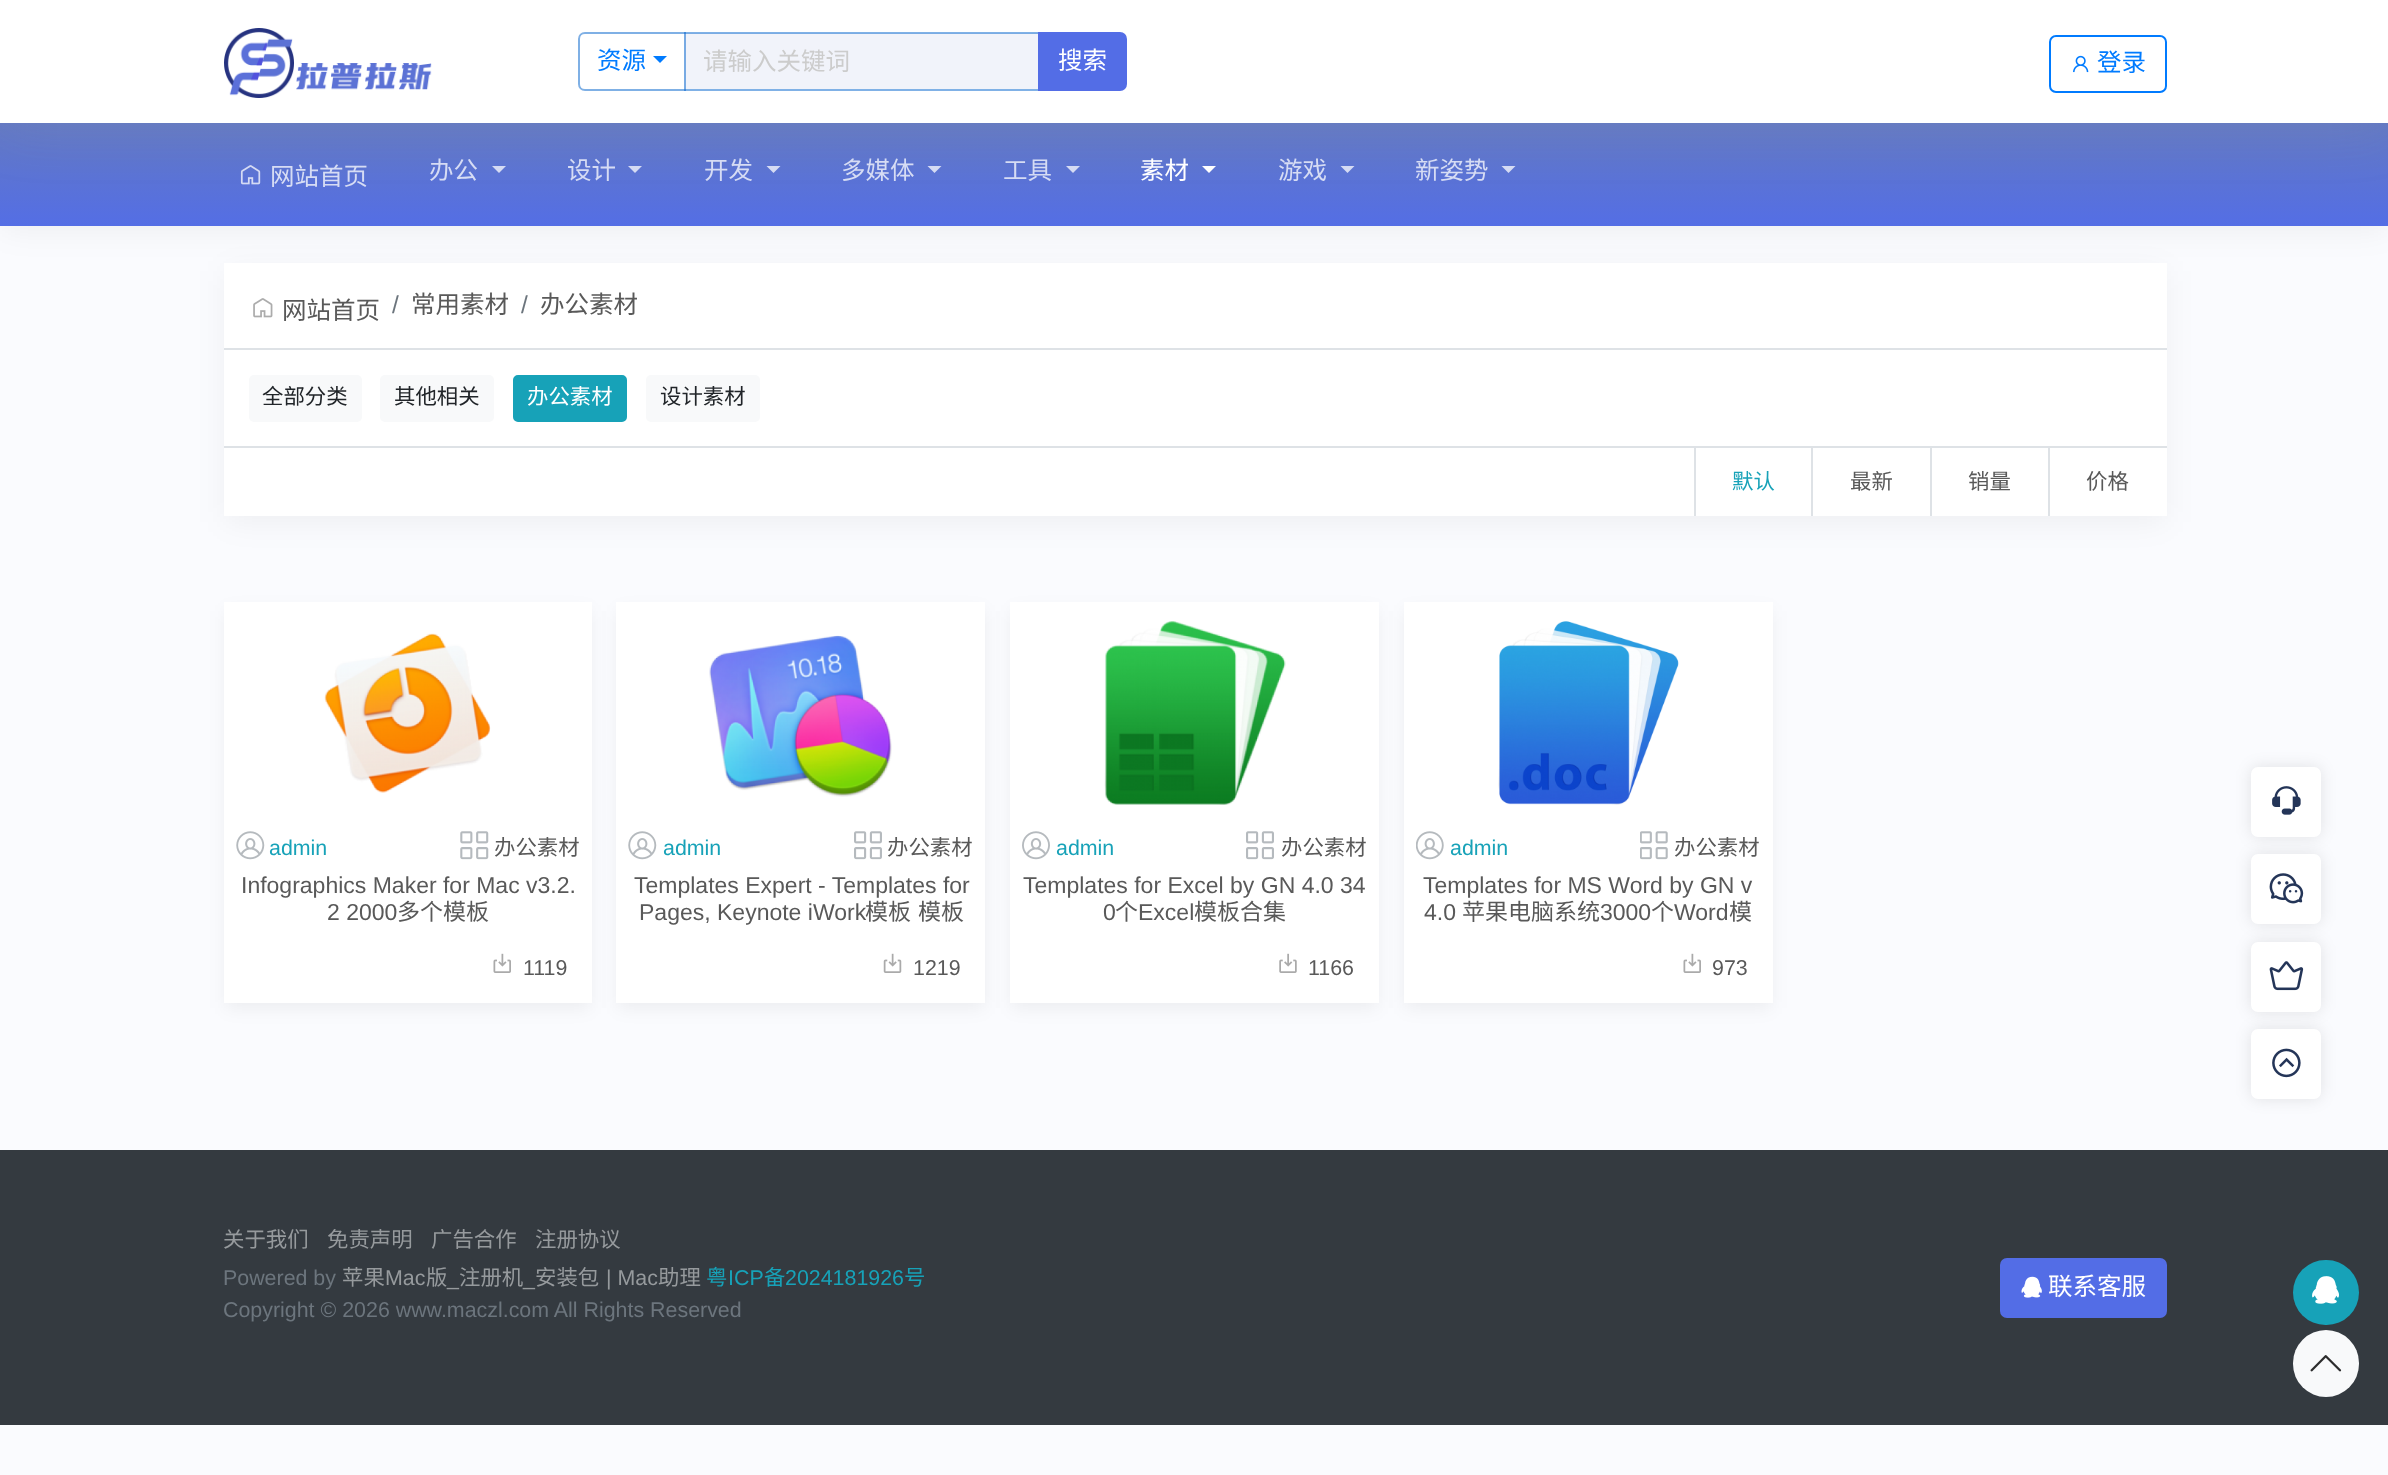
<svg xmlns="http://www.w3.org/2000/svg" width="2388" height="1475">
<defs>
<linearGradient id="g1" gradientUnits="userSpaceOnUse" x1="1194" y1="122" x2="1194" y2="226"><stop offset="0" stop-color="#6379c3"/><stop offset="1" stop-color="#546ee5"/></linearGradient>
</defs>
<rect width="100%" height="100%" fill="#fafbfe"/>
<rect x="226" y="271" width="1939" height="251" fill="#0000000d" filter="blur(15.5px)"/>
<rect x="224" y="263" width="1943" height="253" fill="#fff"/>
<rect x="2" y="131" width="2385" height="100" fill="#0000000d" filter="blur(15.5px)"/>
<rect y="123" width="2388" height="103" fill="url(#g1)"/>
<image x="240" y="165" width="21" height="20" href="media/3.png"/>
<path d="M492 166h14l-7 7z" fill="#d6dcf4"/>
<path d="M628 166h14l-7 7z" fill="#d6dcf4"/>
<path d="M766.5 166h14l-7 7z" fill="#d6dcf4"/>
<path d="M927.5 166h14l-7 7z" fill="#d6dcf4"/>
<path d="M1066 166h14l-7 7z" fill="#d6dcf4"/>
<path d="M1202 166h14l-7 7z" fill="#fff"/>
<path d="M1340.5 166h14l-7 7z" fill="#d6dcf4"/>
<path d="M1501.5 166h14l-7 7z" fill="#d6dcf4"/>
<rect width="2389" height="123" fill="#9aa1ab26" filter="blur(30.5px)"/>
<rect width="2388" height="123" fill="#fff"/>
<rect x="684" y="32" width="354" height="1" fill="#80b1e6"/>
<image x="224" y="28" width="208" height="70" href="media/1.png"/>
<rect x="684" y="34" width="354" height="55" fill="#f1f3fa"/>
<rect x="684" y="33" width="354" height="1" fill="#79abe3"/>
<rect x="684" y="89" width="354" height="2" fill="#80b1e6"/>
<path d="M585 33h100v57h-100c-3.5 0-6-2.5-6-6v-45c0-3.5 2.5-6 6-6z" fill="none" stroke="#0062cc80" stroke-width="2"/>
<text x="597" y="69" style="font-family:Noto Sans CJK SC;font-size:24.5px;fill:#007bff">资源</text>
<path d="M653 56h14l-7 7z" fill="#007bff"/>
<text x="703" y="70" style="font-family:Noto Sans CJK SC;font-size:24.5px;fill:#ccc">请输入关键词</text>
<path d="M1039 33h81c3.5 0 6 2.5 6 6v45c0 3.5-2.5 6-6 6h-81z" fill="#536de6" stroke="#536de6" stroke-width="2"/>
<text x="1058" y="69" style="font-family:Noto Sans CJK SC;font-size:24.5px;fill:#fff">搜索</text>
<rect x="2050" y="36" width="116" height="56" rx="6" fill="none" stroke="#007bff" stroke-width="2"/>
<image x="2073" y="55" width="16" height="18" href="media/2.png"/>
<text x="2097" y="71" style="font-family:Noto Sans CJK SC;font-size:24.5px;fill:#007bff">登录</text>
<text x="270" y="185" style="font-family:Noto Sans CJK SC;font-size:24.5px;fill:#d6dcf4">网站首页</text>
<text x="429" y="179" style="font-family:Noto Sans CJK SC;font-size:24.5px;fill:#d6dcf4">办公</text>
<text x="567" y="179" style="font-family:Noto Sans CJK SC;font-size:24.5px;fill:#d6dcf4">设计</text>
<text x="704" y="179" style="font-family:Noto Sans CJK SC;font-size:24.5px;fill:#d6dcf4">开发</text>
<text x="841" y="179" style="font-family:Noto Sans CJK SC;font-size:24.5px;fill:#d6dcf4">多媒体</text>
<text x="1003" y="179" style="font-family:Noto Sans CJK SC;font-size:24.5px;fill:#d6dcf4">工具</text>
<text x="1140" y="179" style="font-family:Noto Sans CJK SC;font-size:24.5px;fill:#fff">素材</text>
<text x="1278" y="179" style="font-family:Noto Sans CJK SC;font-size:24.5px;fill:#d6dcf4">游戏</text>
<text x="1415" y="179" style="font-family:Noto Sans CJK SC;font-size:24.5px;fill:#d6dcf4">新姿势</text>
<rect x="224" y="348" width="1943" height="2" fill="#dee2e6"/>
<image x="253" y="298" width="20" height="20" href="media/4.png"/>
<text x="282" y="319" style="font-family:Noto Sans CJK SC;font-size:24.5px;fill:#595959">网站首页</text>
<text x="392" y="313" style="font-family:Liberation Sans;font-size:24.5px;fill:#6c757d">/</text>
<text x="411" y="313" style="font-family:Noto Sans CJK SC;font-size:24.5px;fill:#595959">常用素材</text>
<text x="521" y="313" style="font-family:Liberation Sans;font-size:24.5px;fill:#6c757d">/</text>
<text x="540" y="313" style="font-family:Noto Sans CJK SC;font-size:24.5px;fill:#595959">办公素材</text>
<rect x="224" y="446" width="1943" height="2" fill="#dee2e6"/>
<rect x="249" y="375" width="113" height="47" rx="5" fill="#f8f9fa"/>
<text x="262" y="404" style="font-family:Noto Sans CJK SC;font-size:21.4px;fill:#212529">全部分类</text>
<rect x="380" y="375" width="114" height="47" rx="5" fill="#f8f9fa"/>
<text x="394" y="404" style="font-family:Noto Sans CJK SC;font-size:21.4px;fill:#212529">其他相关</text>
<rect x="514" y="376" width="112" height="45" rx="4" fill="#17a2b8" stroke="#17a2b8" stroke-width="2"/>
<text x="527" y="404" style="font-family:Noto Sans CJK SC;font-size:21.4px;fill:#fff">办公素材</text>
<rect x="646" y="375" width="114" height="47" rx="5" fill="#f8f9fa"/>
<text x="660" y="404" style="font-family:Noto Sans CJK SC;font-size:21.4px;fill:#212529">设计素材</text>
<rect x="1694" y="448" width="2" height="68" fill="#dee2e6"/>
<text x="1732" y="489" style="font-family:Noto Sans CJK SC;font-size:21.4px;fill:#17a2b8">默认</text>
<rect x="1811" y="448" width="2" height="68" fill="#dee2e6"/>
<text x="1850" y="489" style="font-family:Noto Sans CJK SC;font-size:21.4px;fill:#595959">最新</text>
<rect x="1930" y="448" width="2" height="68" fill="#dee2e6"/>
<text x="1968" y="489" style="font-family:Noto Sans CJK SC;font-size:21.4px;fill:#595959">销量</text>
<rect x="2048" y="448" width="2" height="68" fill="#dee2e6"/>
<text x="2086" y="489" style="font-family:Noto Sans CJK SC;font-size:21.4px;fill:#595959">价格</text>
<rect x="226" y="611" width="364" height="397" fill="#0000000f" filter="blur(9px)"/>
<rect x="224" y="602" width="368" height="401" fill="#fff"/>
<image x="324" y="633" width="167" height="160" href="media/5.png"/>
<image x="236" y="831" width="29" height="29" href="media/6.png"/>
<text x="269" y="855" style="font-family:Liberation Sans;font-size:21.4px;fill:#17a2b8">admin</text>
<image x="460" y="831" width="29" height="29" href="media/7.png"/>
<text x="494" y="855" style="font-family:Noto Sans CJK SC;font-size:21.4px;fill:#595959">办公素材</text>
<text x="241" y="893" style="font-family:Liberation Sans;font-size:23px;fill:#595959">Infographics Maker for Mac v3.2.</text>
<text x="327" y="920" style="font-family:Liberation Sans;font-size:23px;fill:#595959">2 2000</text>
<text x="397" y="920" style="font-family:Noto Sans CJK SC;font-size:23px;fill:#595959">多个模板</text>
<image x="493" y="953" width="18" height="20" href="media/8.png"/>
<text x="523" y="975" style="font-family:Liberation Sans;font-size:21.4px;fill:#595959">1119</text>
<rect x="618" y="611" width="366" height="397" fill="#0000000f" filter="blur(9px)"/>
<rect x="616" y="602" width="369" height="401" fill="#fff"/>
<image x="709" y="635" width="183" height="162" href="media/9.png"/>
<image x="628" y="831" width="29" height="29" href="media/6.png"/>
<text x="663" y="855" style="font-family:Liberation Sans;font-size:21.4px;fill:#17a2b8">admin</text>
<image x="854" y="831" width="28" height="29" href="media/10.png"/>
<text x="887" y="855" style="font-family:Noto Sans CJK SC;font-size:21.4px;fill:#595959">办公素材</text>
<text x="634" y="893" style="font-family:Liberation Sans;font-size:23px;fill:#595959">Templates Expert - Templates for</text>
<text x="639" y="920" style="font-family:Liberation Sans;font-size:23px;fill:#595959">Pages, Keynote iWork</text>
<text x="865" y="920" style="font-family:Noto Sans CJK SC;font-size:23px;fill:#595959">模板</text>
<text x="918" y="920" style="font-family:Noto Sans CJK SC;font-size:23px;fill:#595959">模板</text>
<image x="883" y="953" width="19" height="20" href="media/11.png"/>
<text x="913" y="975" style="font-family:Liberation Sans;font-size:21.4px;fill:#595959">1219</text>
<rect x="1012" y="611" width="365" height="397" fill="#0000000f" filter="blur(9px)"/>
<rect x="1010" y="602" width="369" height="401" fill="#fff"/>
<image x="1104" y="621" width="182" height="184" href="media/12.png"/>
<image x="1022" y="831" width="28" height="29" href="media/13.png"/>
<text x="1056" y="855" style="font-family:Liberation Sans;font-size:21.4px;fill:#17a2b8">admin</text>
<image x="1246" y="831" width="28" height="29" href="media/10.png"/>
<text x="1281" y="855" style="font-family:Noto Sans CJK SC;font-size:21.4px;fill:#595959">办公素材</text>
<text x="1023" y="893" style="font-family:Liberation Sans;font-size:23px;fill:#595959">Templates for Excel by GN 4.0 34</text>
<text x="1103" y="920" style="font-family:Liberation Sans;font-size:23px;fill:#595959">0</text>
<text x="1115" y="920" style="font-family:Noto Sans CJK SC;font-size:23px;fill:#595959">个</text>
<text x="1138" y="920" style="font-family:Liberation Sans;font-size:23px;fill:#595959">Excel</text>
<text x="1194" y="920" style="font-family:Noto Sans CJK SC;font-size:23px;fill:#595959">模板合集</text>
<image x="1279" y="953" width="18" height="20" href="media/14.png"/>
<text x="1308" y="975" style="font-family:Liberation Sans;font-size:21.4px;fill:#595959">1166</text>
<rect x="1405" y="611" width="366" height="397" fill="#0000000f" filter="blur(9px)"/>
<rect x="1404" y="602" width="369" height="401" fill="#fff"/>
<image x="1498" y="621" width="181" height="184" href="media/15.png"/>
<image x="1416" y="831" width="28" height="29" href="media/16.png"/>
<text x="1450" y="855" style="font-family:Liberation Sans;font-size:21.4px;fill:#17a2b8">admin</text>
<image x="1640" y="831" width="28" height="29" href="media/17.png"/>
<text x="1674" y="855" style="font-family:Noto Sans CJK SC;font-size:21.4px;fill:#595959">办公素材</text>
<text x="1423" y="893" style="font-family:Liberation Sans;font-size:23px;fill:#595959">Templates for MS Word by GN v</text>
<text x="1424" y="920" style="font-family:Liberation Sans;font-size:23px;fill:#595959">4.0</text>
<text x="1462" y="920" style="font-family:Noto Sans CJK SC;font-size:23px;fill:#595959">苹果电脑系统</text>
<text x="1600" y="920" style="font-family:Liberation Sans;font-size:23px;fill:#595959">3000</text>
<text x="1651" y="920" style="font-family:Noto Sans CJK SC;font-size:23px;fill:#595959">个</text>
<text x="1674" y="920" style="font-family:Liberation Sans;font-size:23px;fill:#595959">Word</text>
<text x="1729" y="920" style="font-family:Noto Sans CJK SC;font-size:23px;fill:#595959">模</text>
<image x="1683" y="953" width="18" height="20" href="media/8.png"/>
<text x="1712" y="975" style="font-family:Liberation Sans;font-size:21.4px;fill:#595959">973</text>
<rect x="2251" y="767" width="70" height="70" rx="7" fill="#0000001a" filter="blur(8px)"/>
<rect x="2251" y="767" width="70" height="70" rx="7" fill="#fff"/>
<image x="2272" y="786" width="29" height="29" href="media/18.png"/>
<rect x="2251" y="854" width="70" height="70" rx="7" fill="#0000001a" filter="blur(8px)"/>
<rect x="2251" y="854" width="70" height="70" rx="7" fill="#fff"/>
<image x="2269" y="873" width="35" height="31" href="media/19.png"/>
<rect x="2251" y="942" width="70" height="70" rx="7" fill="#0000001a" filter="blur(8px)"/>
<rect x="2251" y="942" width="70" height="70" rx="7" fill="#fff"/>
<image x="2269" y="961" width="35" height="30" href="media/20.png"/>
<rect x="2251" y="1029" width="70" height="70" rx="7" fill="#0000001a" filter="blur(8px)"/>
<rect x="2251" y="1029" width="70" height="70" rx="7" fill="#fff"/>
<image x="2272" y="1048" width="29" height="30" href="media/21.png"/>
<rect y="1150" width="2388" height="275" fill="#343a40"/>
<text x="223" y="1247" style="font-family:Noto Sans CJK SC;font-size:21.4px;fill:#969a9d">关于我们</text>
<text x="327" y="1247" style="font-family:Noto Sans CJK SC;font-size:21.4px;fill:#969a9d">免责声明</text>
<text x="431" y="1247" style="font-family:Noto Sans CJK SC;font-size:21.4px;fill:#969a9d">广告合作</text>
<text x="535" y="1247" style="font-family:Noto Sans CJK SC;font-size:21.4px;fill:#969a9d">注册协议</text>
<text x="223" y="1285" style="font-family:Liberation Sans;font-size:21.4px;fill:#6c757d">Powered by</text>
<text x="342" y="1285" style="font-family:Noto Sans CJK SC;font-size:21.4px;fill:#969a9d">苹果</text>
<text x="385" y="1285" style="font-family:Liberation Sans;font-size:21.4px;fill:#969a9d">Mac</text>
<text x="426" y="1285" style="font-family:Noto Sans CJK SC;font-size:21.4px;fill:#969a9d">版</text>
<text x="459" y="1285" style="font-family:Noto Sans CJK SC;font-size:21.4px;fill:#969a9d">注册机</text>
<text x="535" y="1285" style="font-family:Noto Sans CJK SC;font-size:21.4px;fill:#969a9d">安装包</text>
<text x="606" y="1285" style="font-family:Liberation Sans;font-size:21.4px;fill:#969a9d">| Mac</text>
<text x="658" y="1285" style="font-family:Noto Sans CJK SC;font-size:21.4px;fill:#969a9d">助理</text>
<text x="706" y="1285" style="font-family:Noto Sans CJK SC;font-size:21.4px;fill:#17a2b8">粤</text>
<text x="728" y="1285" style="font-family:Liberation Sans;font-size:21.4px;fill:#17a2b8">ICP</text>
<text x="764" y="1285" style="font-family:Noto Sans CJK SC;font-size:21.4px;fill:#17a2b8">备</text>
<text x="785" y="1285" style="font-family:Liberation Sans;font-size:21.4px;fill:#17a2b8">2024181926</text>
<text x="904" y="1285" style="font-family:Noto Sans CJK SC;font-size:21.4px;fill:#17a2b8">号</text>
<text x="447" y="1285" style="font-family:Liberation Sans;font-size:21.4px;fill:#969a9d">_</text>
<text x="523" y="1285" style="font-family:Liberation Sans;font-size:21.4px;fill:#969a9d">_</text>
<text x="223" y="1317" style="font-family:Liberation Sans;font-size:21.4px;fill:#6c757d">Copyright © 2026 www.maczl.com All Rights Reserved</text>
<rect x="2001" y="1259" width="165" height="58" rx="6" fill="#536de6" stroke="#536de6" stroke-width="2"/>
<image x="2021" y="1276" width="21" height="22" href="media/22.png"/>
<text x="2048" y="1295" style="font-family:Noto Sans CJK SC;font-size:24.5px;fill:#fff">联系客服</text>
<rect x="2293" y="1260" width="66" height="65" rx="32.5" fill="#17a2b8"/>
<image x="2312" y="1276" width="27" height="28" href="media/23.png"/>
<rect x="2293" y="1330" width="66" height="67" rx="33" fill="#f8f9fa"/>
<image x="2310" y="1355" width="32" height="17" href="media/24.png"/>
</svg>
